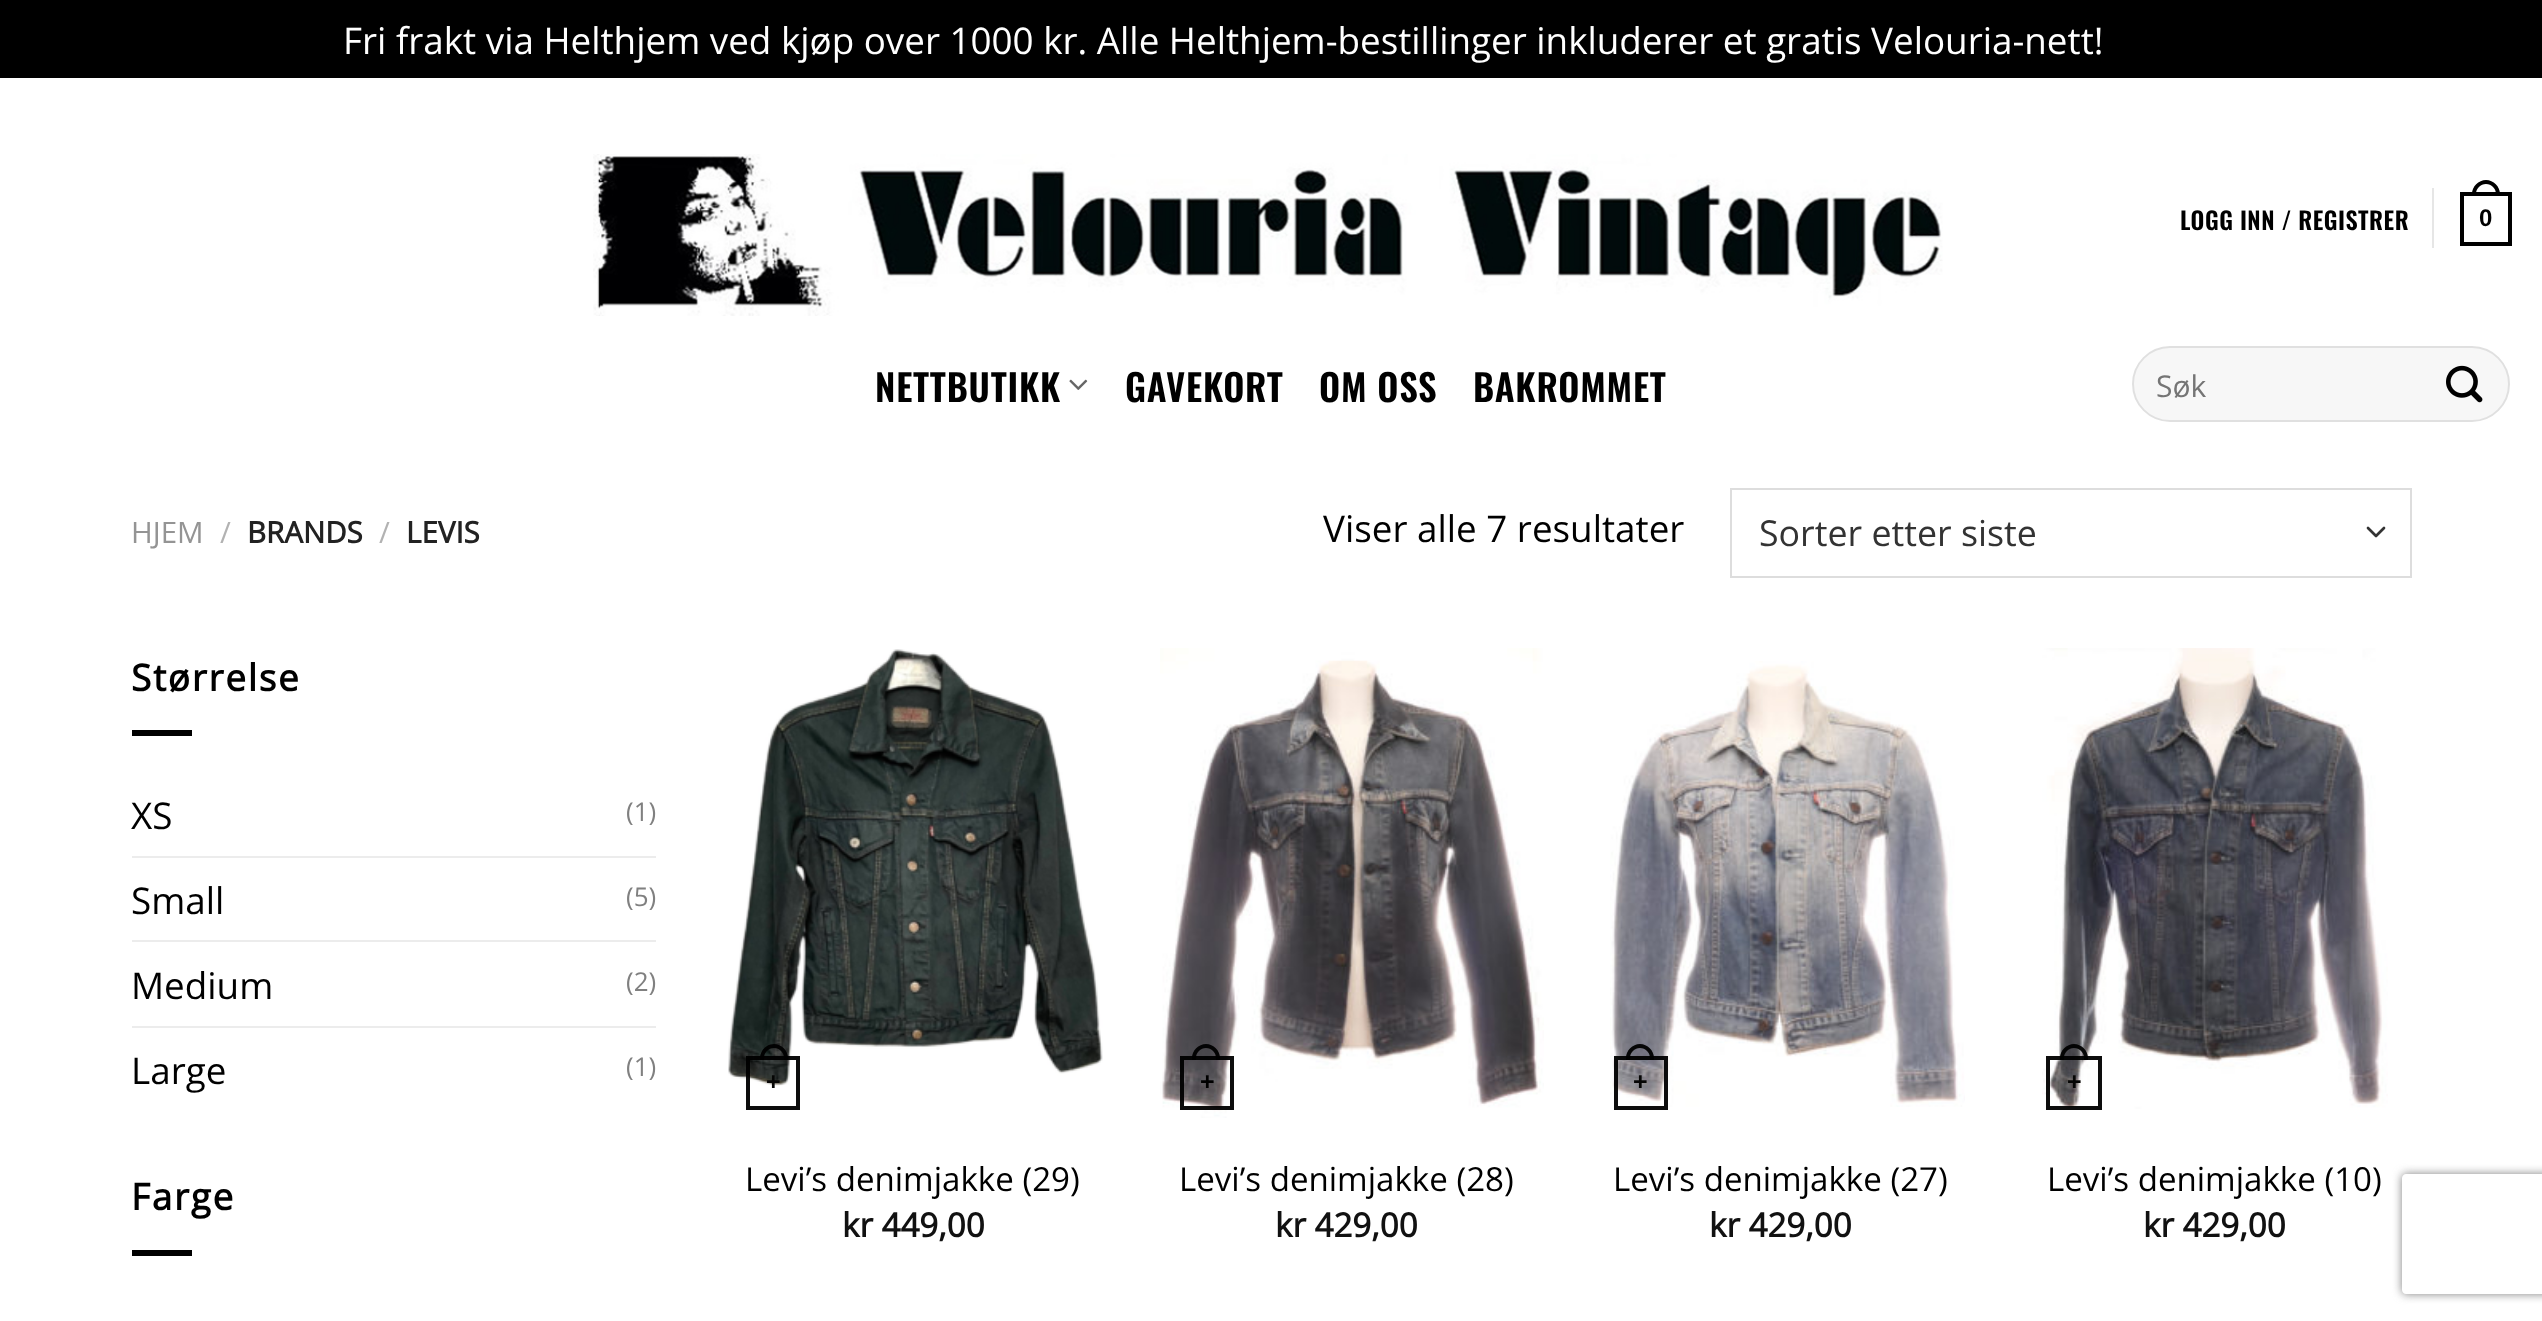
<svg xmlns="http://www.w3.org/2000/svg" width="2542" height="1321">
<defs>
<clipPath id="clip1"><path d="M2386 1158h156v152h-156zm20 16h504c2 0 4 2 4 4v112c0 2-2 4-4 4h-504c-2 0-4-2-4-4v-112c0-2 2-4 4-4z" clip-rule="evenodd"/></clipPath>
</defs>
<rect width="100%" height="100%" fill="#fff"/>
<rect width="2542" height="78" fill="#000"/>
<text x="343" y="54" style="font-family:Open Sans;font-size:36.8px;fill:#fff">Fri frakt via Helthjem ved kjøp over 1000 kr. Alle Helthjem-bestillinger inkluderer et gratis Velouria-nett!</text>
<image x="593" y="154" width="1350" height="162" href="media/1.png"/>
<text x="2180" y="230" style="font-family:Oswald;font-size:24px;font-weight:600;letter-spacing:0.5px;fill:#000">LOGG INN / REGISTRER</text>
<rect x="2432" y="188" width="2" height="60" fill="#e6e6e6"/>
<rect x="2462" y="194" width="48" height="50" fill="none" stroke="#000" stroke-width="4"/>
<path d="M2486 180c7.5 0 14 6.5 14 14v2h-28v-2c0-7.5 6.5-14 14-14zm0 4c5.5 0 10 4.5 10 10v2h-20v-2c0-5.5 4.5-10 10-10z" fill="#000" fill-rule="evenodd"/>
<text x="2479" y="226" style="font-family:Liberation Sans;font-size:24px;font-weight:bold;letter-spacing:0.5px;fill:#000">0</text>
<text x="875" y="402" style="font-family:Oswald;font-size:36.8px;font-weight:600;letter-spacing:0.75px;fill:#000">NETTBUTIKK</text>
<image x="1069" y="379" width="19" height="11" href="media/2.png"/>
<text x="1125" y="402" style="font-family:Oswald;font-size:36.8px;font-weight:600;letter-spacing:0.75px;fill:#000">GAVEKORT</text>
<text x="1319" y="402" style="font-family:Oswald;font-size:36.8px;font-weight:600;letter-spacing:0.75px;fill:#000">OM OSS</text>
<text x="1473" y="402" style="font-family:Oswald;font-size:36.8px;font-weight:600;letter-spacing:0.75px;fill:#000">BAKROMMET</text>
<rect x="2132" y="346" width="378" height="76" rx="38" fill="#f7f7f7"/>
<rect x="2133" y="347" width="376" height="74" rx="37" fill="none" stroke="#00000017" stroke-width="2"/>
<text x="2156" y="397" style="font-family:Open Sans;font-size:30px;fill:#757575">Søk</text>
<image x="2446" y="365" width="37" height="38" href="media/3.png"/>
<text x="131" y="543" style="font-family:Open Sans;font-size:29.5px;fill:#949494">HJEM</text>
<text x="220" y="543" style="font-family:Open Sans;font-size:29.5px;fill:#b2b2b2">/</text>
<text x="247" y="543" style="font-family:Open Sans;font-size:29.5px;font-weight:bold;fill:#222">BRANDS</text>
<text x="379" y="543" style="font-family:Open Sans;font-size:29.5px;fill:#b2b2b2">/</text>
<text x="406" y="543" style="font-family:Open Sans;font-size:29.5px;font-weight:bold;fill:#222">LEVIS</text>
<text x="1323" y="542" style="font-family:Open Sans;font-size:36.8px;fill:#000">Viser alle 7 resultater</text>
<path d="M2368 528l8 8l8-8" fill="none" stroke="#333" stroke-width="2.7" stroke-linecap="round" stroke-linejoin="round"/>
<rect x="1731" y="489" width="680" height="88" fill="none" stroke="#ddd" stroke-width="2"/>
<text x="1759" y="546" style="font-family:Open Sans;font-size:35.75px;fill:#333">Sorter etter siste</text>
<text x="131" y="691" style="font-family:Open Sans;font-size:36.8px;font-weight:bold;letter-spacing:1.75px;fill:#000">Størrelse</text>
<rect x="132" y="730" width="60" height="6" fill="#000"/>
<text x="131" y="829" style="font-family:Open Sans;font-size:36.8px;fill:#000">XS</text>
<text x="626" y="821" style="font-family:Open Sans;font-size:26px;fill:#808080">(1)</text>
<rect x="132" y="856" width="524" height="2" fill="#ececec"/>
<text x="131" y="914" style="font-family:Open Sans;font-size:36.8px;fill:#000">Small</text>
<text x="626" y="906" style="font-family:Open Sans;font-size:26px;fill:#808080">(5)</text>
<rect x="132" y="940" width="524" height="2" fill="#ececec"/>
<text x="131" y="999" style="font-family:Open Sans;font-size:36.8px;fill:#000">Medium</text>
<text x="626" y="991" style="font-family:Open Sans;font-size:26px;fill:#808080">(2)</text>
<rect x="132" y="1026" width="524" height="2" fill="#ececec"/>
<text x="131" y="1084" style="font-family:Open Sans;font-size:36.8px;fill:#000">Large</text>
<text x="626" y="1076" style="font-family:Open Sans;font-size:26px;fill:#808080">(1)</text>
<text x="131" y="1210" style="font-family:Open Sans;font-size:36.8px;font-weight:bold;letter-spacing:1.75px;fill:#000">Farge</text>
<rect x="132" y="1250" width="60" height="6" fill="#000"/>
<image x="728" y="649" width="375" height="437" href="media/4.png"/>
<rect x="748" y="1058" width="50" height="50" fill="none" stroke="#000000f2" stroke-width="4"/>
<path d="M774 1044c7.5 0 14 6.5 14 14v2h-28v-2c0-7.5 6.5-14 14-14zm0 4c5.5 0 10 4.5 10 10v2h-20v-2c0-5.5 4.5-10 10-10z" fill="#000000f2" fill-rule="evenodd"/>
<text x="766" y="1090" style="font-family:Liberation Sans;font-size:25px;font-weight:bold;fill:#060605">+</text>
<text x="745" y="1191" style="font-family:Open Sans;font-size:33.1px;fill:#000">Levi’s denimjakke (29)</text>
<text x="842" y="1237" style="font-family:Open Sans;font-size:33.1px;font-weight:bold;fill:#111">kr 449,00</text>
<image x="1160" y="648" width="384" height="470" href="media/5.png"/>
<rect x="1182" y="1058" width="50" height="50" fill="none" stroke="#000000f2" stroke-width="4"/>
<path d="M1206 1044c7.5 0 14 6.5 14 14v2h-28v-2c0-7.5 6.5-14 14-14zm0 4c5.5 0 10 4.5 10 10v2h-20v-2c0-5.5 4.5-10 10-10z" fill="#000000f2" fill-rule="evenodd"/>
<text x="1200" y="1090" style="font-family:Liberation Sans;font-size:25px;font-weight:bold;fill:#000">+</text>
<text x="1179" y="1191" style="font-family:Open Sans;font-size:33.1px;fill:#000">Levi’s denimjakke (28)</text>
<text x="1275" y="1237" style="font-family:Open Sans;font-size:33.1px;font-weight:bold;fill:#111">kr 429,00</text>
<image x="1610" y="661" width="355" height="446" href="media/6.png"/>
<rect x="1616" y="1058" width="50" height="50" fill="none" stroke="#000000f2" stroke-width="4"/>
<path d="M1640 1044c7.5 0 14 6.5 14 14v2h-28v-2c0-7.5 6.5-14 14-14zm0 4c5.5 0 10 4.5 10 10v2h-20v-2c0-5.5 4.5-10 10-10z" fill="#000000f2" fill-rule="evenodd"/>
<text x="1633" y="1090" style="font-family:Liberation Sans;font-size:25px;font-weight:bold;fill:#060605">+</text>
<text x="1613" y="1191" style="font-family:Open Sans;font-size:33.1px;fill:#000">Levi’s denimjakke (27)</text>
<text x="1709" y="1237" style="font-family:Open Sans;font-size:33.1px;font-weight:bold;fill:#111">kr 429,00</text>
<image x="2042" y="648" width="346" height="461" href="media/7.png"/>
<rect x="2048" y="1058" width="52" height="50" fill="none" stroke="#000000f2" stroke-width="4"/>
<path d="M2074 1044c7.5 0 14 6.5 14 14v2h-28v-2c0-7.5 6.5-14 14-14zm0 4c5.5 0 10 4.5 10 10v2h-20v-2c0-5.5 4.5-10 10-10z" fill="#000000f2" fill-rule="evenodd"/>
<text x="2067" y="1090" style="font-family:Liberation Sans;font-size:25px;font-weight:bold;fill:#060605">+</text>
<text x="2047" y="1191" style="font-family:Open Sans;font-size:33.1px;fill:#000">Levi’s denimjakke (10)</text>
<text x="2143" y="1237" style="font-family:Open Sans;font-size:33.1px;font-weight:bold;fill:#111">kr 429,00</text>
<g clip-path="url(#clip1)">
<rect x="2402" y="1174" width="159" height="120" rx="4" fill="#808080" filter="blur(5px)"/>
</g>
</svg>
